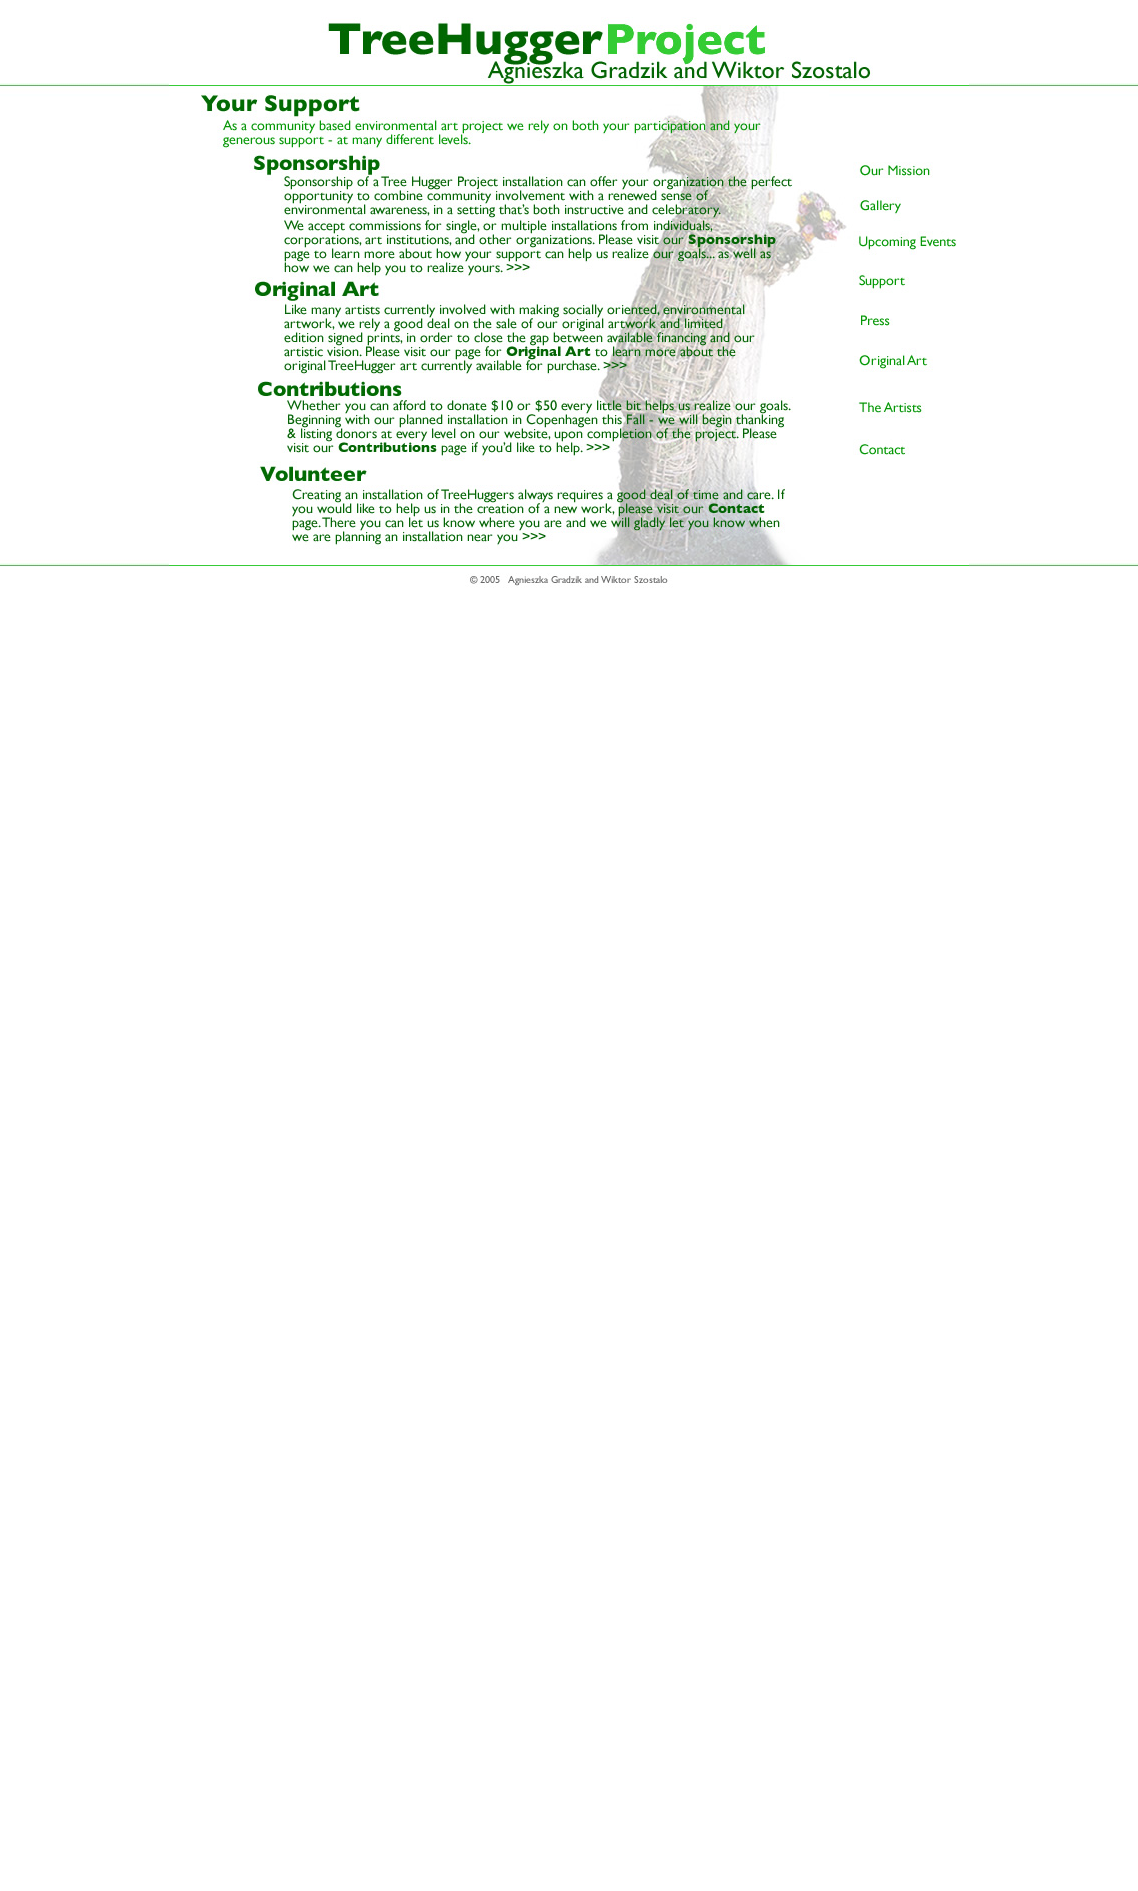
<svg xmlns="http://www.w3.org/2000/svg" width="1138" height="1891">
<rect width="100%" height="100%" fill="#fff"/>
<image x="0" y="83" width="1138" height="484" href="media/1.png"/>
<image x="169" y="17" width="800" height="68" href="media/2.png"/>
<image x="169" y="85" width="660" height="503" href="media/3.png"/>
<image x="829" y="85" width="140" height="2" href="media/4.png"/>
<image x="853" y="162" width="80" height="16" href="media/5.png"/>
<image x="829" y="197" width="72" height="26" href="media/6.png"/>
<image x="829" y="223" width="128" height="32" href="media/7.png"/>
<image x="853" y="270" width="56" height="23" href="media/8.png"/>
<image x="861" y="310" width="32" height="16" href="media/9.png"/>
<image x="854" y="348" width="79" height="24" href="media/10.png"/>
<image x="853" y="402" width="72" height="16" href="media/11.png"/>
<image x="853" y="439" width="56" height="16" href="media/12.png"/>
<image x="829" y="563" width="140" height="4" href="media/13.png"/>
</svg>
